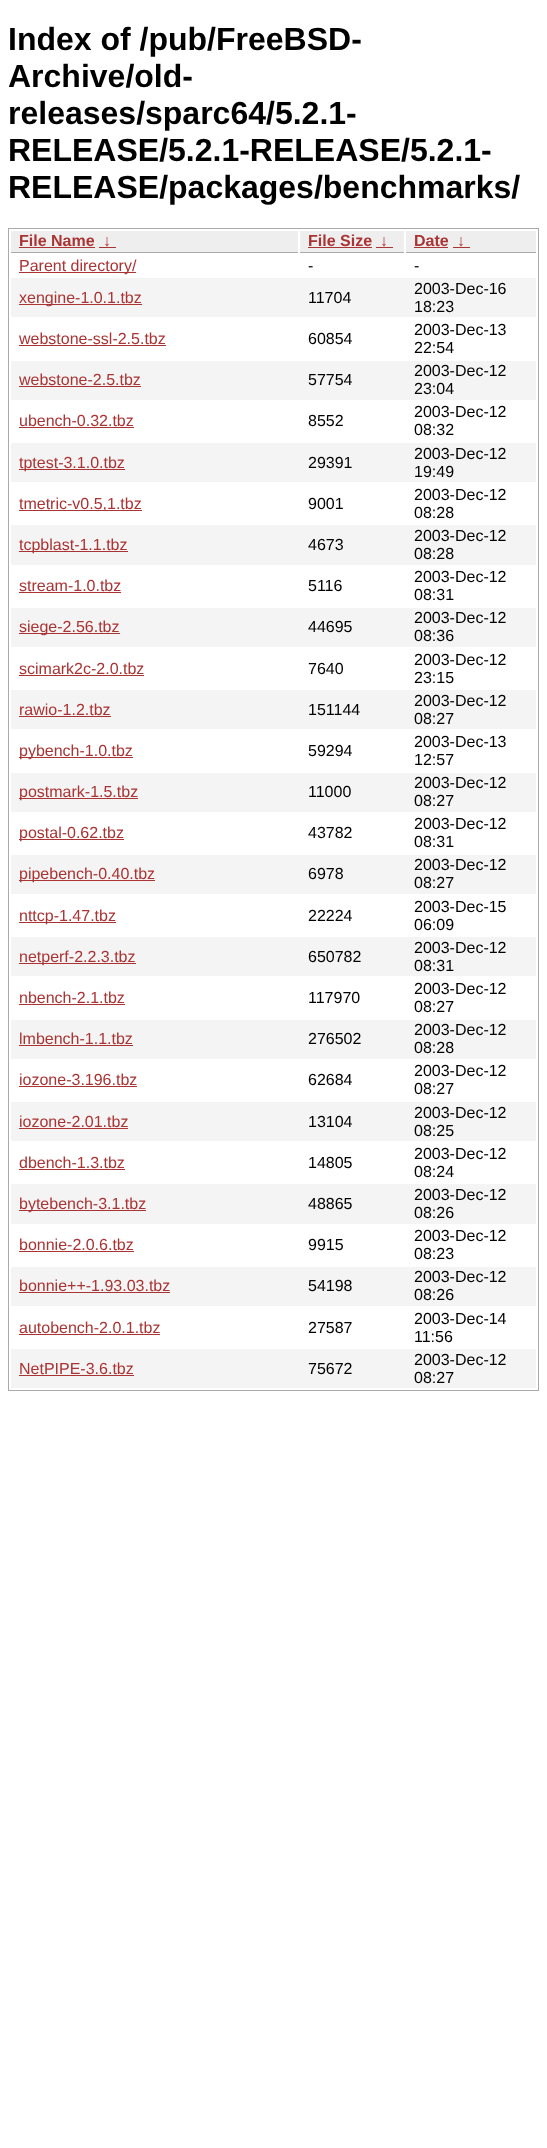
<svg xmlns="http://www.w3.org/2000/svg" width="547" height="2148">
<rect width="100%" height="100%" fill="#fff"/>
<text x="8" y="50" style="font-family:Liberation Sans;font-size:32px;font-weight:bold;fill:#000">Index of /pub/FreeBSD-</text>
<text x="8" y="87" style="font-family:Liberation Sans;font-size:32px;font-weight:bold;fill:#000">Archive/old-</text>
<text x="8" y="124" style="font-family:Liberation Sans;font-size:32px;font-weight:bold;fill:#000">releases/sparc64/5.2.1-</text>
<text x="8" y="161" style="font-family:Liberation Sans;font-size:32px;font-weight:bold;fill:#000">RELEASE/5.2.1-RELEASE/5.2.1-</text>
<text x="8" y="198" style="font-family:Liberation Sans;font-size:32px;font-weight:bold;fill:#000">RELEASE/packages/benchmarks/</text>
<rect x="8.5" y="228.5" width="530" height="1162" fill="none" stroke="#aaa"/>
<rect x="11" y="231" width="287" height="21" fill="#eee"/>
<rect x="11" y="252" width="287" height="1" fill="#aaa"/>
<text x="19" y="246" style="font-family:Liberation Sans;font-size:16px;font-weight:bold;fill:#a33">File Name</text>
<rect x="19" y="247" width="76" height="1" fill="#a33"/>
<text x="103" y="246" style="font-family:Liberation Sans;font-size:16px;font-weight:bold;fill:#a33">↓</text>
<rect x="99" y="247" width="17" height="1" fill="#a33"/>
<rect x="300" y="231" width="104" height="21" fill="#eee"/>
<rect x="300" y="252" width="104" height="1" fill="#aaa"/>
<text x="308" y="246" style="font-family:Liberation Sans;font-size:16px;font-weight:bold;fill:#a33">File Size</text>
<rect x="308" y="247" width="64" height="1" fill="#a33"/>
<text x="380" y="246" style="font-family:Liberation Sans;font-size:16px;font-weight:bold;fill:#a33">↓</text>
<rect x="376" y="247" width="17" height="1" fill="#a33"/>
<rect x="406" y="231" width="130" height="21" fill="#eee"/>
<rect x="406" y="252" width="130" height="1" fill="#aaa"/>
<text x="414" y="246" style="font-family:Liberation Sans;font-size:16px;font-weight:bold;fill:#a33">Date</text>
<rect x="414" y="247" width="34" height="1" fill="#a33"/>
<text x="457" y="246" style="font-family:Liberation Sans;font-size:16px;font-weight:bold;fill:#a33">↓</text>
<rect x="453" y="247" width="17" height="1" fill="#a33"/>
<rect x="19" y="272" width="117" height="1" fill="#a33"/>
<text x="19" y="271" style="font-family:Liberation Sans;font-size:16px;fill:#a33">Parent directory/</text>
<text x="308" y="271" style="font-family:Liberation Sans;font-size:16px;fill:#000">-</text>
<text x="414" y="271" style="font-family:Liberation Sans;font-size:16px;fill:#000">-</text>
<rect x="11" y="278" width="525" height="39" fill="#f4f4f4"/>
<rect x="19" y="304" width="123" height="1" fill="#a33"/>
<text x="19" y="303" style="font-family:Liberation Sans;font-size:16px;fill:#a33">xengine-1.0.1.tbz</text>
<text x="308" y="303" style="font-family:Liberation Sans;font-size:16px;fill:#000">11704</text>
<text x="414" y="294" style="font-family:Liberation Sans;font-size:16px;fill:#000">2003-Dec-16</text>
<text x="414" y="312" style="font-family:Liberation Sans;font-size:16px;fill:#000">18:23</text>
<text x="19" y="344" style="font-family:Liberation Sans;font-size:16px;fill:#a33">webstone-ssl-2.5.tbz</text>
<rect x="19" y="345" width="147" height="1" fill="#a33"/>
<text x="308" y="344" style="font-family:Liberation Sans;font-size:16px;fill:#000">60854</text>
<text x="414" y="335" style="font-family:Liberation Sans;font-size:16px;fill:#000">2003-Dec-13</text>
<text x="414" y="353" style="font-family:Liberation Sans;font-size:16px;fill:#000">22:54</text>
<rect x="11" y="361" width="525" height="39" fill="#f4f4f4"/>
<text x="19" y="385" style="font-family:Liberation Sans;font-size:16px;fill:#a33">webstone-2.5.tbz</text>
<rect x="19" y="386" width="122" height="1" fill="#a33"/>
<text x="308" y="385" style="font-family:Liberation Sans;font-size:16px;fill:#000">57754</text>
<text x="414" y="376" style="font-family:Liberation Sans;font-size:16px;fill:#000">2003-Dec-12</text>
<text x="414" y="394" style="font-family:Liberation Sans;font-size:16px;fill:#000">23:04</text>
<text x="19" y="426" style="font-family:Liberation Sans;font-size:16px;fill:#a33">ubench-0.32.tbz</text>
<rect x="19" y="427" width="115" height="1" fill="#a33"/>
<text x="308" y="426" style="font-family:Liberation Sans;font-size:16px;fill:#000">8552</text>
<text x="414" y="417" style="font-family:Liberation Sans;font-size:16px;fill:#000">2003-Dec-12</text>
<text x="414" y="435" style="font-family:Liberation Sans;font-size:16px;fill:#000">08:32</text>
<rect x="11" y="443" width="525" height="39" fill="#f4f4f4"/>
<rect x="19" y="469" width="106" height="1" fill="#a33"/>
<text x="19" y="468" style="font-family:Liberation Sans;font-size:16px;fill:#a33">tptest-3.1.0.tbz</text>
<text x="308" y="468" style="font-family:Liberation Sans;font-size:16px;fill:#000">29391</text>
<text x="414" y="459" style="font-family:Liberation Sans;font-size:16px;fill:#000">2003-Dec-12</text>
<text x="414" y="477" style="font-family:Liberation Sans;font-size:16px;fill:#000">19:49</text>
<rect x="19" y="510" width="123" height="1" fill="#a33"/>
<text x="19" y="509" style="font-family:Liberation Sans;font-size:16px;fill:#a33">tmetric-v0.5,1.tbz</text>
<text x="308" y="509" style="font-family:Liberation Sans;font-size:16px;fill:#000">9001</text>
<text x="414" y="500" style="font-family:Liberation Sans;font-size:16px;fill:#000">2003-Dec-12</text>
<text x="414" y="518" style="font-family:Liberation Sans;font-size:16px;fill:#000">08:28</text>
<rect x="11" y="525" width="525" height="40" fill="#f4f4f4"/>
<rect x="19" y="551" width="109" height="1" fill="#a33"/>
<text x="19" y="550" style="font-family:Liberation Sans;font-size:16px;fill:#a33">tcpblast-1.1.tbz</text>
<text x="308" y="550" style="font-family:Liberation Sans;font-size:16px;fill:#000">4673</text>
<text x="414" y="541" style="font-family:Liberation Sans;font-size:16px;fill:#000">2003-Dec-12</text>
<text x="414" y="559" style="font-family:Liberation Sans;font-size:16px;fill:#000">08:28</text>
<text x="19" y="591" style="font-family:Liberation Sans;font-size:16px;fill:#a33">stream-1.0.tbz</text>
<rect x="19" y="592" width="102" height="1" fill="#a33"/>
<text x="308" y="591" style="font-family:Liberation Sans;font-size:16px;fill:#000">5116</text>
<text x="414" y="582" style="font-family:Liberation Sans;font-size:16px;fill:#000">2003-Dec-12</text>
<text x="414" y="600" style="font-family:Liberation Sans;font-size:16px;fill:#000">08:31</text>
<rect x="11" y="608" width="525" height="39" fill="#f4f4f4"/>
<rect x="19" y="633" width="101" height="1" fill="#a33"/>
<text x="19" y="632" style="font-family:Liberation Sans;font-size:16px;fill:#a33">siege-2.56.tbz</text>
<text x="308" y="632" style="font-family:Liberation Sans;font-size:16px;fill:#000">44695</text>
<text x="414" y="623" style="font-family:Liberation Sans;font-size:16px;fill:#000">2003-Dec-12</text>
<text x="414" y="641" style="font-family:Liberation Sans;font-size:16px;fill:#000">08:36</text>
<text x="19" y="674" style="font-family:Liberation Sans;font-size:16px;fill:#a33">scimark2c-2.0.tbz</text>
<rect x="19" y="675" width="125" height="1" fill="#a33"/>
<text x="308" y="674" style="font-family:Liberation Sans;font-size:16px;fill:#000">7640</text>
<text x="414" y="665" style="font-family:Liberation Sans;font-size:16px;fill:#000">2003-Dec-12</text>
<text x="414" y="683" style="font-family:Liberation Sans;font-size:16px;fill:#000">23:15</text>
<rect x="11" y="690" width="525" height="39" fill="#f4f4f4"/>
<text x="19" y="715" style="font-family:Liberation Sans;font-size:16px;fill:#a33">rawio-1.2.tbz</text>
<rect x="19" y="716" width="92" height="1" fill="#a33"/>
<text x="308" y="715" style="font-family:Liberation Sans;font-size:16px;fill:#000">151144</text>
<text x="414" y="706" style="font-family:Liberation Sans;font-size:16px;fill:#000">2003-Dec-12</text>
<text x="414" y="724" style="font-family:Liberation Sans;font-size:16px;fill:#000">08:27</text>
<rect x="19" y="757" width="114" height="1" fill="#a33"/>
<text x="19" y="756" style="font-family:Liberation Sans;font-size:16px;fill:#a33">pybench-1.0.tbz</text>
<text x="308" y="756" style="font-family:Liberation Sans;font-size:16px;fill:#000">59294</text>
<text x="414" y="747" style="font-family:Liberation Sans;font-size:16px;fill:#000">2003-Dec-13</text>
<text x="414" y="765" style="font-family:Liberation Sans;font-size:16px;fill:#000">12:57</text>
<rect x="11" y="773" width="525" height="39" fill="#f4f4f4"/>
<rect x="19" y="798" width="119" height="1" fill="#a33"/>
<text x="19" y="797" style="font-family:Liberation Sans;font-size:16px;fill:#a33">postmark-1.5.tbz</text>
<text x="308" y="797" style="font-family:Liberation Sans;font-size:16px;fill:#000">11000</text>
<text x="414" y="788" style="font-family:Liberation Sans;font-size:16px;fill:#000">2003-Dec-12</text>
<text x="414" y="806" style="font-family:Liberation Sans;font-size:16px;fill:#000">08:27</text>
<rect x="19" y="839" width="105" height="1" fill="#a33"/>
<text x="19" y="838" style="font-family:Liberation Sans;font-size:16px;fill:#a33">postal-0.62.tbz</text>
<text x="308" y="838" style="font-family:Liberation Sans;font-size:16px;fill:#000">43782</text>
<text x="414" y="829" style="font-family:Liberation Sans;font-size:16px;fill:#000">2003-Dec-12</text>
<text x="414" y="847" style="font-family:Liberation Sans;font-size:16px;fill:#000">08:31</text>
<rect x="11" y="855" width="525" height="39" fill="#f4f4f4"/>
<rect x="19" y="880" width="136" height="1" fill="#a33"/>
<text x="19" y="879" style="font-family:Liberation Sans;font-size:16px;fill:#a33">pipebench-0.40.tbz</text>
<text x="308" y="879" style="font-family:Liberation Sans;font-size:16px;fill:#000">6978</text>
<text x="414" y="870" style="font-family:Liberation Sans;font-size:16px;fill:#000">2003-Dec-12</text>
<text x="414" y="888" style="font-family:Liberation Sans;font-size:16px;fill:#000">08:27</text>
<rect x="19" y="922" width="97" height="1" fill="#a33"/>
<text x="19" y="921" style="font-family:Liberation Sans;font-size:16px;fill:#a33">nttcp-1.47.tbz</text>
<text x="308" y="921" style="font-family:Liberation Sans;font-size:16px;fill:#000">22224</text>
<text x="414" y="912" style="font-family:Liberation Sans;font-size:16px;fill:#000">2003-Dec-15</text>
<text x="414" y="930" style="font-family:Liberation Sans;font-size:16px;fill:#000">06:09</text>
<rect x="11" y="937" width="525" height="39" fill="#f4f4f4"/>
<rect x="19" y="963" width="117" height="1" fill="#a33"/>
<text x="19" y="962" style="font-family:Liberation Sans;font-size:16px;fill:#a33">netperf-2.2.3.tbz</text>
<text x="308" y="962" style="font-family:Liberation Sans;font-size:16px;fill:#000">650782</text>
<text x="414" y="953" style="font-family:Liberation Sans;font-size:16px;fill:#000">2003-Dec-12</text>
<text x="414" y="971" style="font-family:Liberation Sans;font-size:16px;fill:#000">08:31</text>
<text x="19" y="1003" style="font-family:Liberation Sans;font-size:16px;fill:#a33">nbench-2.1.tbz</text>
<rect x="19" y="1004" width="106" height="1" fill="#a33"/>
<text x="308" y="1003" style="font-family:Liberation Sans;font-size:16px;fill:#000">117970</text>
<text x="414" y="994" style="font-family:Liberation Sans;font-size:16px;fill:#000">2003-Dec-12</text>
<text x="414" y="1012" style="font-family:Liberation Sans;font-size:16px;fill:#000">08:27</text>
<rect x="11" y="1020" width="525" height="39" fill="#f4f4f4"/>
<text x="19" y="1044" style="font-family:Liberation Sans;font-size:16px;fill:#a33">lmbench-1.1.tbz</text>
<rect x="19" y="1045" width="114" height="1" fill="#a33"/>
<text x="308" y="1044" style="font-family:Liberation Sans;font-size:16px;fill:#000">276502</text>
<text x="414" y="1035" style="font-family:Liberation Sans;font-size:16px;fill:#000">2003-Dec-12</text>
<text x="414" y="1053" style="font-family:Liberation Sans;font-size:16px;fill:#000">08:28</text>
<text x="19" y="1085" style="font-family:Liberation Sans;font-size:16px;fill:#a33">iozone-3.196.tbz</text>
<rect x="19" y="1086" width="118" height="1" fill="#a33"/>
<text x="308" y="1085" style="font-family:Liberation Sans;font-size:16px;fill:#000">62684</text>
<text x="414" y="1076" style="font-family:Liberation Sans;font-size:16px;fill:#000">2003-Dec-12</text>
<text x="414" y="1094" style="font-family:Liberation Sans;font-size:16px;fill:#000">08:27</text>
<rect x="11" y="1102" width="525" height="39" fill="#f4f4f4"/>
<text x="19" y="1127" style="font-family:Liberation Sans;font-size:16px;fill:#a33">iozone-2.01.tbz</text>
<rect x="19" y="1128" width="109" height="1" fill="#a33"/>
<text x="308" y="1127" style="font-family:Liberation Sans;font-size:16px;fill:#000">13104</text>
<text x="414" y="1118" style="font-family:Liberation Sans;font-size:16px;fill:#000">2003-Dec-12</text>
<text x="414" y="1136" style="font-family:Liberation Sans;font-size:16px;fill:#000">08:25</text>
<text x="19" y="1168" style="font-family:Liberation Sans;font-size:16px;fill:#a33">dbench-1.3.tbz</text>
<rect x="19" y="1169" width="106" height="1" fill="#a33"/>
<text x="308" y="1168" style="font-family:Liberation Sans;font-size:16px;fill:#000">14805</text>
<text x="414" y="1159" style="font-family:Liberation Sans;font-size:16px;fill:#000">2003-Dec-12</text>
<text x="414" y="1177" style="font-family:Liberation Sans;font-size:16px;fill:#000">08:24</text>
<rect x="11" y="1184" width="525" height="40" fill="#f4f4f4"/>
<rect x="19" y="1210" width="127" height="1" fill="#a33"/>
<text x="19" y="1209" style="font-family:Liberation Sans;font-size:16px;fill:#a33">bytebench-3.1.tbz</text>
<text x="308" y="1209" style="font-family:Liberation Sans;font-size:16px;fill:#000">48865</text>
<text x="414" y="1200" style="font-family:Liberation Sans;font-size:16px;fill:#000">2003-Dec-12</text>
<text x="414" y="1218" style="font-family:Liberation Sans;font-size:16px;fill:#000">08:26</text>
<text x="19" y="1250" style="font-family:Liberation Sans;font-size:16px;fill:#a33">bonnie-2.0.6.tbz</text>
<rect x="19" y="1251" width="115" height="1" fill="#a33"/>
<text x="308" y="1250" style="font-family:Liberation Sans;font-size:16px;fill:#000">9915</text>
<text x="414" y="1241" style="font-family:Liberation Sans;font-size:16px;fill:#000">2003-Dec-12</text>
<text x="414" y="1259" style="font-family:Liberation Sans;font-size:16px;fill:#000">08:23</text>
<rect x="11" y="1267" width="525" height="39" fill="#f4f4f4"/>
<text x="19" y="1291" style="font-family:Liberation Sans;font-size:16px;fill:#a33">bonnie++-1.93.03.tbz</text>
<rect x="19" y="1292" width="151" height="1" fill="#a33"/>
<text x="308" y="1291" style="font-family:Liberation Sans;font-size:16px;fill:#000">54198</text>
<text x="414" y="1282" style="font-family:Liberation Sans;font-size:16px;fill:#000">2003-Dec-12</text>
<text x="414" y="1300" style="font-family:Liberation Sans;font-size:16px;fill:#000">08:26</text>
<text x="19" y="1333" style="font-family:Liberation Sans;font-size:16px;fill:#a33">autobench-2.0.1.tbz</text>
<rect x="19" y="1334" width="141" height="1" fill="#a33"/>
<text x="308" y="1333" style="font-family:Liberation Sans;font-size:16px;fill:#000">27587</text>
<text x="414" y="1324" style="font-family:Liberation Sans;font-size:16px;fill:#000">2003-Dec-14</text>
<text x="414" y="1342" style="font-family:Liberation Sans;font-size:16px;fill:#000">11:56</text>
<rect x="11" y="1349" width="525" height="39" fill="#f4f4f4"/>
<text x="19" y="1374" style="font-family:Liberation Sans;font-size:16px;fill:#a33">NetPIPE-3.6.tbz</text>
<rect x="19" y="1375" width="115" height="1" fill="#a33"/>
<text x="308" y="1374" style="font-family:Liberation Sans;font-size:16px;fill:#000">75672</text>
<text x="414" y="1365" style="font-family:Liberation Sans;font-size:16px;fill:#000">2003-Dec-12</text>
<text x="414" y="1383" style="font-family:Liberation Sans;font-size:16px;fill:#000">08:27</text>
</svg>
